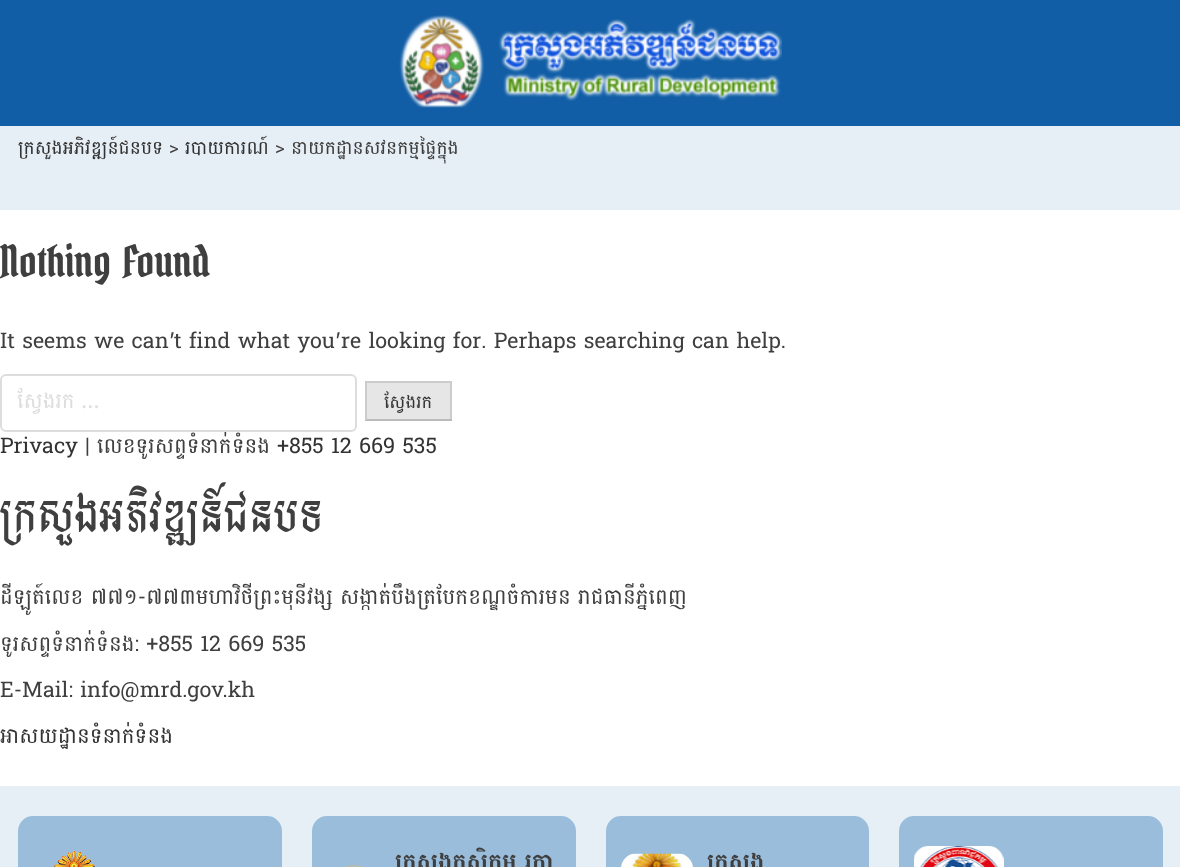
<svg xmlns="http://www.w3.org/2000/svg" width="1180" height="867">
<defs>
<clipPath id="clip1"><rect x="17" y="383" width="303" height="37"/></clipPath>
</defs>
<rect width="100%" height="100%" fill="#fff"/>
<rect width="1180" height="126" fill="#115ea6"/>
<image x="399" y="15" width="383" height="93" href="media/1.png"/>
<rect y="126" width="1180" height="84" fill="#e7eff6"/>
<text x="18" y="154" style="font-family:Battambang;font-size:18.75px;fill:#333">ក្រសួងអភិវឌ្ឍន៍ជនបទ</text>
<text x="169" y="154" style="font-family:Battambang;font-size:18.75px;fill:#403f3f">&gt;</text>
<text x="185" y="154" style="font-family:Battambang;font-size:18.75px;fill:#333">របាយការណ៍</text>
<text x="275" y="154" style="font-family:Battambang;font-size:18.75px;fill:#403f3f">&gt; នាយកដ្ឋានសវនកម្មផ្ទៃក្នុង</text>
<text x="0" y="277" style="font-family:Bokor;font-size:43px;fill:#403f3f">Nothing Found</text>
<text x="0" y="348" style="font-family:Battambang;font-size:21.5px;fill:#403f3f">It seems we can</text>
<text x="169" y="348" style="font-family:Inter;font-size:21.5px;fill:#403f3f">’</text>
<text x="174" y="348" style="font-family:Battambang;font-size:21.5px;fill:#403f3f">t find what you</text>
<text x="335" y="348" style="font-family:Inter;font-size:21.5px;fill:#403f3f">’</text>
<text x="341" y="348" style="font-family:Battambang;font-size:21.5px;fill:#403f3f">re looking for. Perhaps searching can help.</text>
<rect x="1" y="375" width="355" height="56" rx="5" fill="none" stroke="#ddd" stroke-width="2"/>
<g clip-path="url(#clip1)">
<text x="17" y="408" style="font-family:Battambang;font-size:21.5px;fill:#ddd">ស្វែងរក</text>
</g>
<text x="81" y="408" style="font-family:Inter;font-size:21.5px;fill:#ddd">…</text>
<rect x="367" y="383" width="83" height="36" fill="#e6e6e6"/>
<rect x="365" y="381" width="87" height="2" fill="#ccc"/>
<rect x="450" y="381" width="2" height="39" fill="#ccc"/>
<rect x="365" y="419" width="87" height="2" fill="#bbb"/>
<rect x="365" y="381" width="2" height="39" fill="#ccc"/>
<text x="384" y="408" style="font-family:Battambang;font-size:18px;fill:#333">ស្វែងរក</text>
<text x="0" y="453" style="font-family:Battambang;font-size:21.5px;fill:#333">Privacy</text>
<text x="85" y="453" style="font-family:Battambang;font-size:21.5px;fill:#403f3f">| លេខទូរសព្ទទំនាក់ទំនង</text>
<text x="277" y="453" style="font-family:Battambang;font-size:21.5px;fill:#333">+855 12 669 535</text>
<text x="0" y="532" style="font-family:Bokor;font-size:42.5px;fill:#403f3f">ក្រសួងអភិវឌ្ឍន៍ជនបទ</text>
<text x="0" y="604" style="font-family:Battambang;font-size:21.5px;fill:#403f3f">ដីឡូត៍លេខ ៧៧១-៧៧៣មហាវិថីព្រះមុនីវង្ស សង្កាត់បឹងត្របែកខណ្ឌចំការមន រាជធានីភ្នំពេញ</text>
<text x="0" y="651" style="font-family:Battambang;font-size:21.5px;fill:#403f3f">ទូរសព្ទទំនាក់ទំនង: +855 12 669 535</text>
<text x="0" y="697" style="font-family:Battambang;font-size:21.5px;fill:#403f3f">E-Mail: info@mrd.gov.kh</text>
<text x="0" y="743" style="font-family:Battambang;font-size:21.5px;fill:#333">អាសយដ្ឋានទំនាក់ទំនង</text>
<rect y="786" width="1180" height="81" fill="#e7eff6"/>
<rect x="18" y="816" width="264" height="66" rx="15" fill="#99bddb"/>
<image x="54" y="850" width="41" height="17" href="media/2.png"/>
<rect x="312" y="816" width="264" height="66" rx="15" fill="#99bddb"/>
<image x="344" y="865" width="19" height="2" href="media/3.png"/>
<text x="395" y="870" style="font-family:Battambang;font-size:24px;font-weight:bold;fill:#403f3f">ក្រសួងកសិកម្ម រុក្ខា</text>
<rect x="606" y="816" width="263" height="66" rx="15" fill="#99bddb"/>
<image x="621" y="853" width="72" height="14" href="media/4.png"/>
<text x="707" y="870" style="font-family:Battambang;font-size:24px;font-weight:bold;fill:#403f3f">ក្រសួង</text>
<rect x="899" y="816" width="264" height="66" rx="15" fill="#99bddb"/>
<image x="914" y="846" width="90" height="21" href="media/5.png"/>
</svg>
